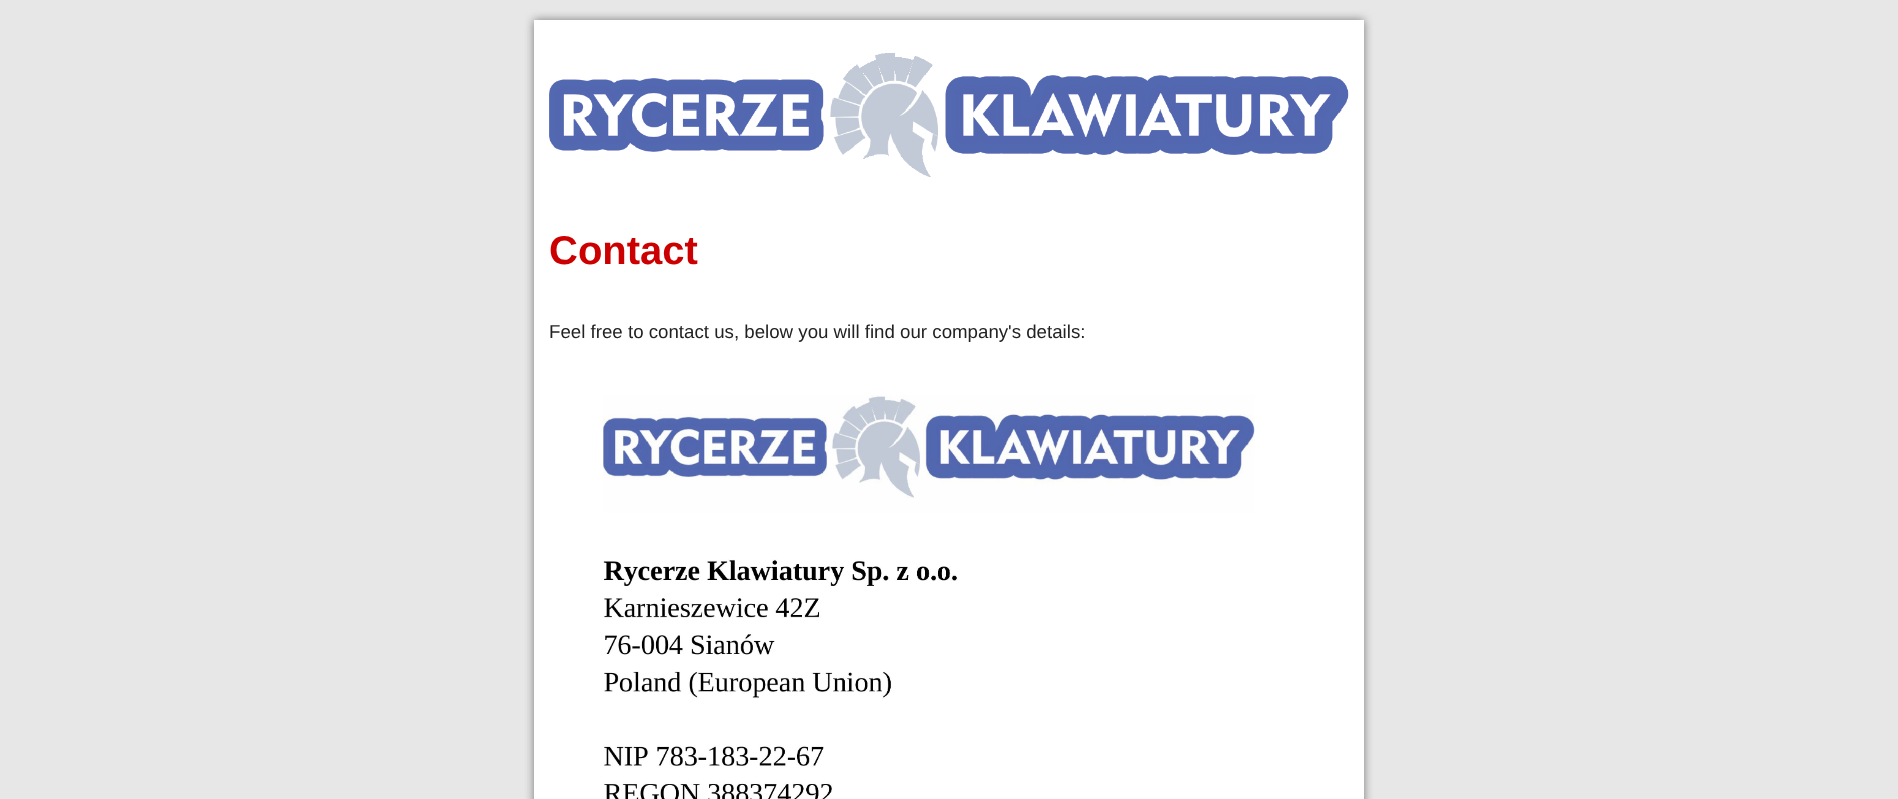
<svg xmlns="http://www.w3.org/2000/svg" width="1898" height="799">
<rect width="100%" height="100%" fill="#e7e7e7"/>
<rect x="534" y="20" width="830" height="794" fill="#777" filter="blur(5px)"/>
<rect x="534" y="20" width="830" height="779" fill="#fff"/>
<image x="549" y="53" width="800" height="124" href="media/1.png"/>
<text x="549" y="264" style="font-family:Liberation Sans;font-size:40px;font-weight:bold;fill:#c00">Contact</text>
<text x="549" y="338" style="font-family:Liberation Sans;font-size:18.7px;fill:#222">Feel free to contact us, below you will find our company's details:</text>
<image x="603" y="395" width="652" height="404" href="media/2.png"/>
</svg>
